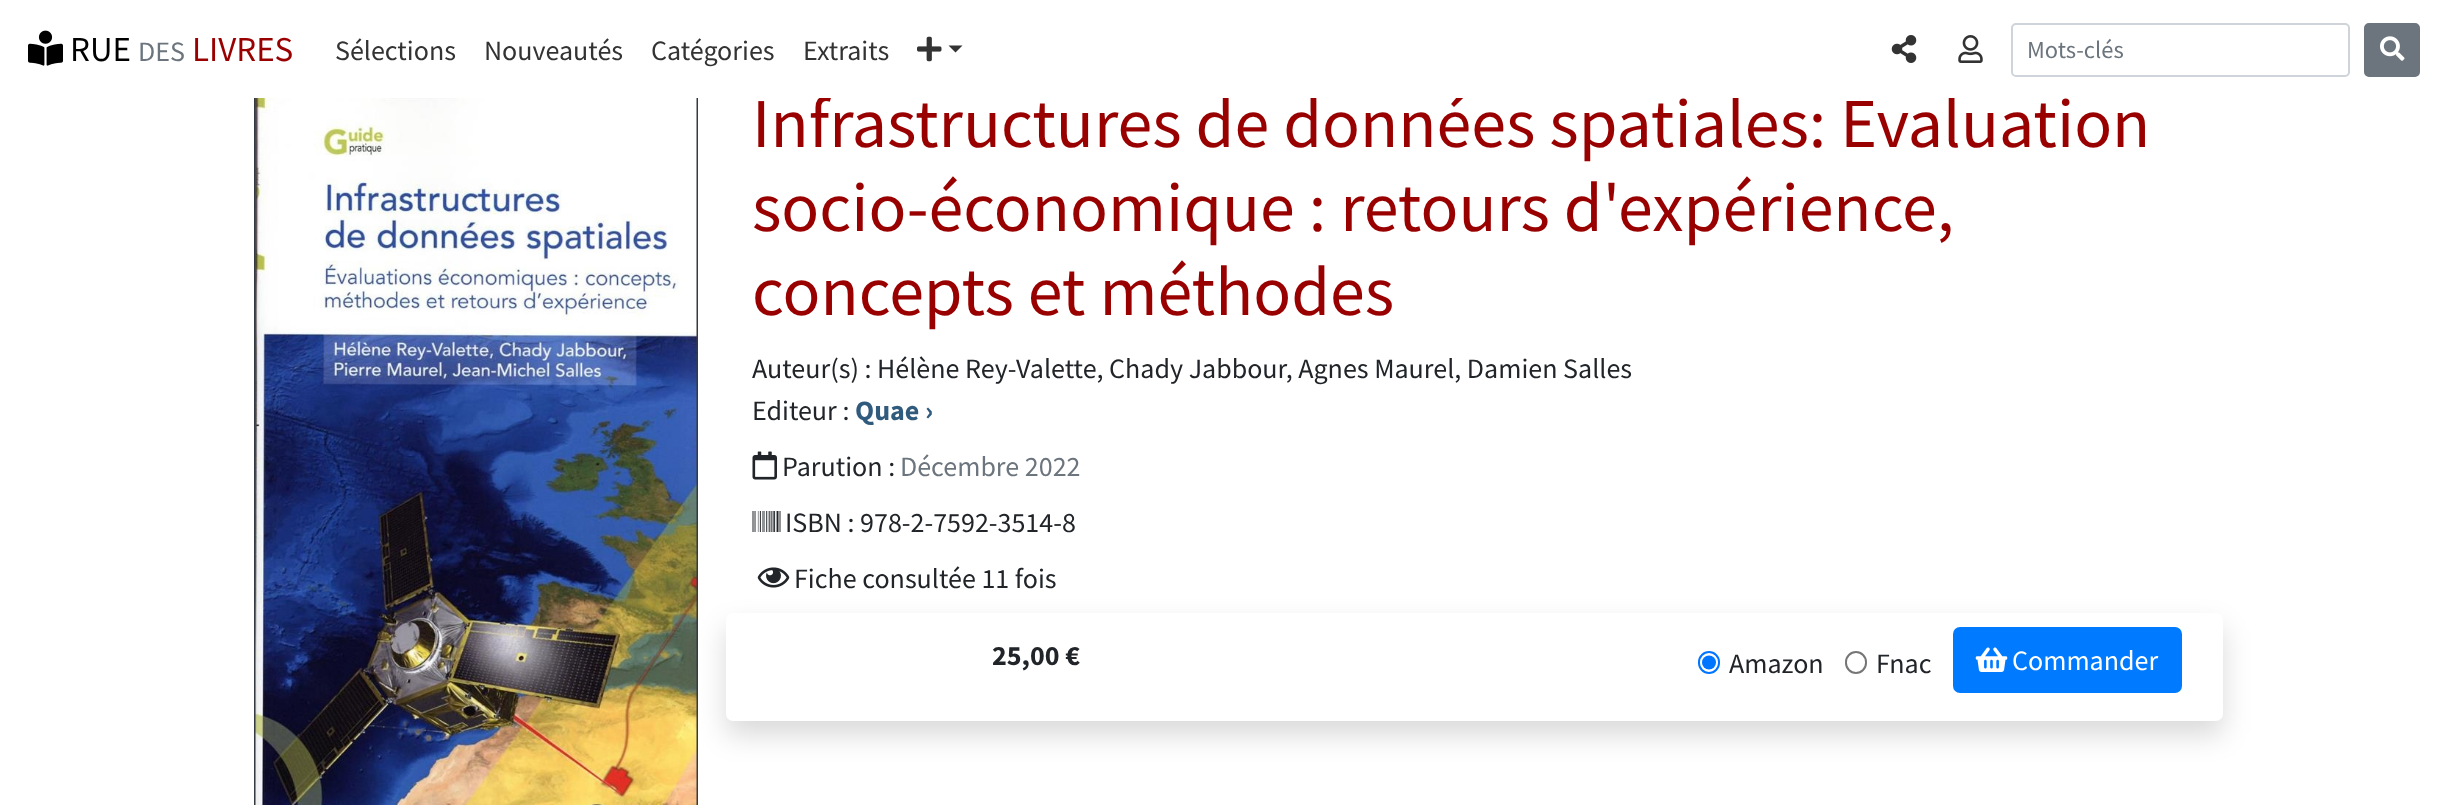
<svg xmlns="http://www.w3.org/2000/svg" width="2448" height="805">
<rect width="100%" height="100%" fill="#fff"/>
<rect x="255" y="96" width="442" height="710" fill="none" stroke="#343a40" stroke-width="2"/>
<text x="752" y="147" style="font-family:Source Sans Pro;font-size:70px;fill:#900">Infrastructures de données spatiales: Évaluation</text>
<rect x="254" y="86" width="1701" height="12" fill="#fff"/>
<image x="28" y="30" width="35" height="36" href="media/1.png"/>
<text x="70" y="61" style="font-family:Source Sans Pro;font-size:35px;fill:#000">RUE</text>
<text x="138" y="61" style="font-family:Source Sans Pro;font-size:28px;fill:#6c757d">DES</text>
<text x="192" y="61" style="font-family:Source Sans Pro;font-size:35px;fill:#900">LIVRES</text>
<text x="335" y="60" style="font-family:Source Sans Pro;font-size:28px;fill:#333">Sélections</text>
<text x="484" y="60" style="font-family:Source Sans Pro;font-size:28px;fill:#333">Nouveautés</text>
<text x="651" y="60" style="font-family:Source Sans Pro;font-size:28px;fill:#333">Catégories</text>
<text x="803" y="60" style="font-family:Source Sans Pro;font-size:28px;fill:#333">Extraits</text>
<image x="917" y="36" width="25" height="26" href="media/2.png"/>
<path d="M948.5 45.5h14l-7 7z" fill="#333"/>
<image x="1891" y="35" width="26" height="28" href="media/3.png"/>
<image x="1958" y="35" width="25" height="28" href="media/4.png"/>
<rect x="2012" y="24" width="337" height="52" rx="4" fill="none" stroke="#ced4da" stroke-width="2"/>
<text x="2027" y="58" style="font-family:Source Sans Pro;font-size:24.5px;fill:#6c757d">Mots-clés</text>
<rect x="2365" y="24" width="54" height="52" rx="4" fill="#6c757d" stroke="#6c757d" stroke-width="2"/>
<image x="2380" y="36" width="25" height="25" href="media/5.png"/>
<image x="255" y="98" width="442" height="707" href="media/6.png"/>
<text x="752" y="231" style="font-family:Source Sans Pro;font-size:70px;fill:#900">socio-économique : retours d'expérience,</text>
<text x="752" y="315" style="font-family:Source Sans Pro;font-size:70px;fill:#900">concepts et méthodes</text>
<text x="752" y="378" style="font-family:Source Sans Pro;font-size:28px;fill:#212529">Auteur(s) : Hélène Rey-Valette, Chady Jabbour, Agnes Maurel, Damien Salles</text>
<text x="752" y="420" style="font-family:Source Sans Pro;font-size:28px;fill:#212529">Editeur :</text>
<text x="855" y="420" style="font-family:Source Sans Pro;font-size:28px;font-weight:bold;fill:#315b7d">Quae ›</text>
<image x="752" y="451" width="25" height="29" href="media/7.png"/>
<text x="782" y="476" style="font-family:Source Sans Pro;font-size:28px;fill:#212529">Parution :</text>
<text x="900" y="476" style="font-family:Source Sans Pro;font-size:28px;fill:#6c757d">Décembre 2022</text>
<image x="752" y="511" width="29" height="21" href="media/8.png"/>
<text x="785" y="532" style="font-family:Source Sans Pro;font-size:28px;fill:#212529">ISBN : 978-2-7592-3514-8</text>
<rect x="726" y="627" width="1497" height="108" rx="7" fill="#00000026" filter="blur(14px)"/>
<image x="757" y="567" width="33" height="21" href="media/9.png"/>
<text x="794" y="588" style="font-family:Source Sans Pro;font-size:28px;fill:#212529">Fiche consultée 11 fois</text>
<rect x="726" y="613" width="1497" height="108" rx="7" fill="#fff"/>
<text x="992" y="665" style="font-family:Source Sans Pro;font-size:28px;font-weight:bold;fill:#212529">25,00 €</text>
<rect x="1699" y="652" width="20" height="21" rx="10" fill="none" stroke="#0075ff" stroke-width="2"/>
<circle cx="1709" cy="662.5" r="7" fill="#0075ff"/>
<text x="1729" y="673" style="font-family:Source Sans Pro;font-size:28px;fill:#212529">Amazon</text>
<rect x="1846" y="652" width="20" height="21" rx="10" fill="none" stroke="#767676" stroke-width="2"/>
<text x="1876" y="673" style="font-family:Source Sans Pro;font-size:28px;fill:#212529">Fnac</text>
<rect x="1954" y="628" width="227" height="64" rx="6" fill="#007bff" stroke="#007bff" stroke-width="2"/>
<image x="1975" y="647" width="33" height="25" href="media/10.png"/>
<text x="2012" y="670" style="font-family:Source Sans Pro;font-size:28px;fill:#fff">Commander</text>
</svg>
